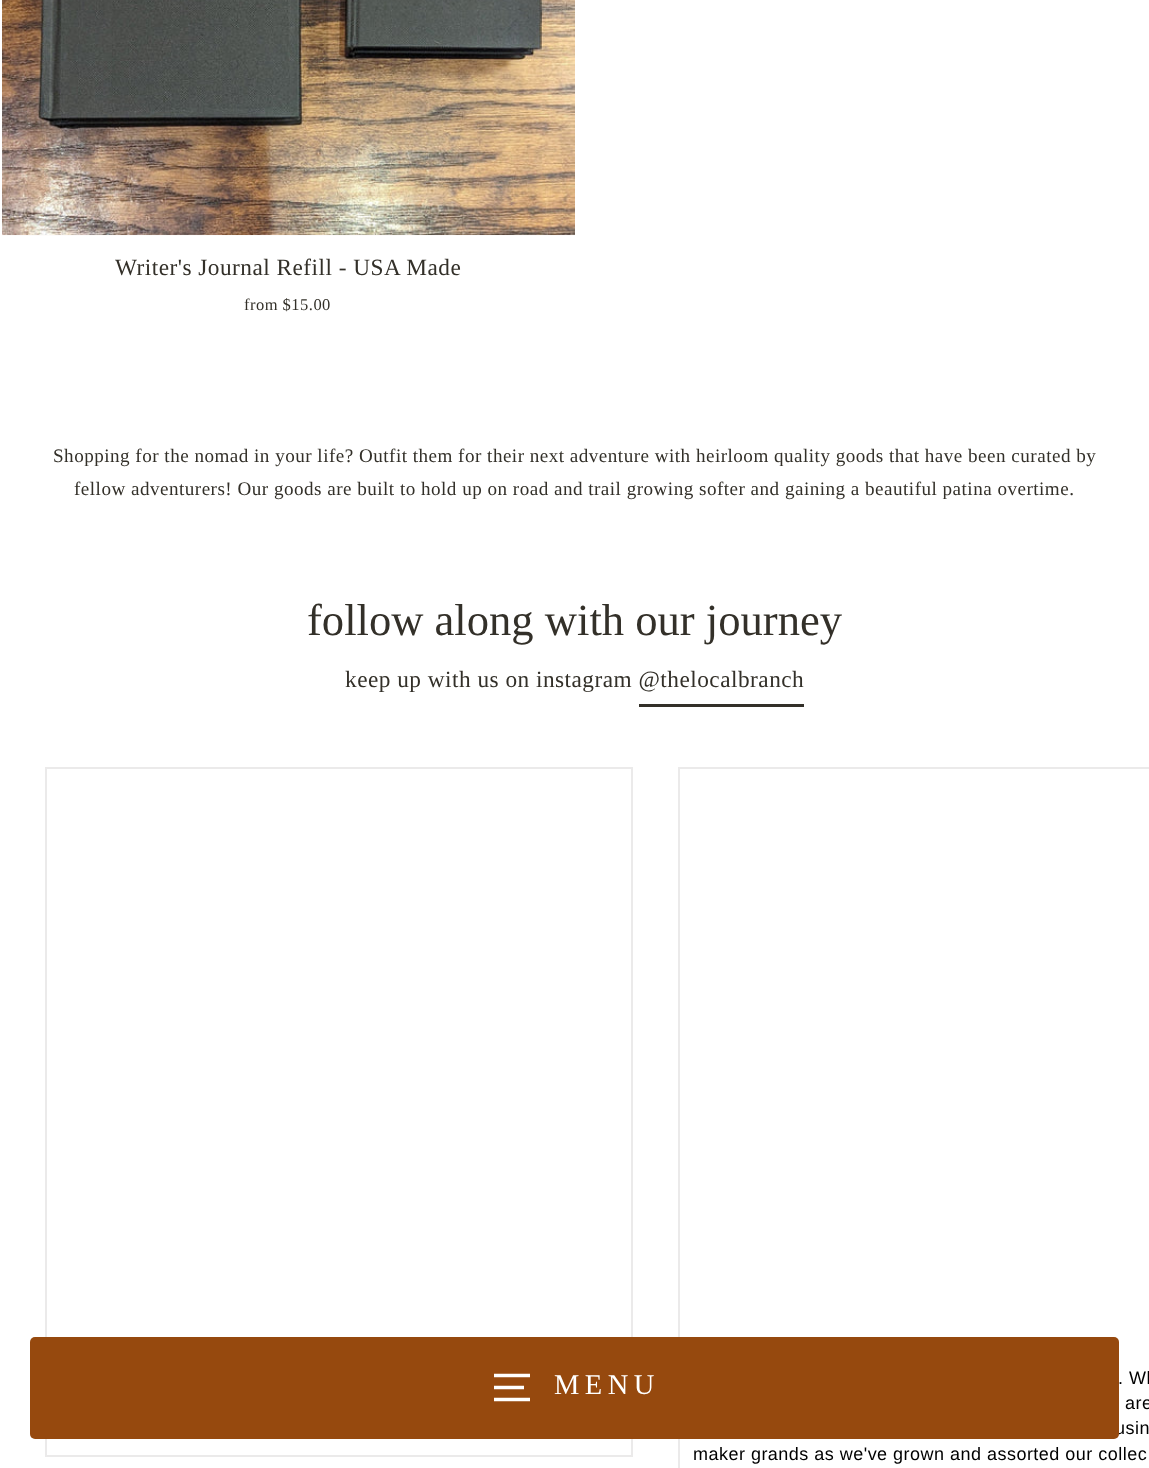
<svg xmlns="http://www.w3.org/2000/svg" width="1149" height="1468">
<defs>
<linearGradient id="g1" gradientUnits="userSpaceOnUse" x1="-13" y1="-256" x2="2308" y2="154"><stop offset="0.4" stop-color="#fdfbfa"/><stop offset="0.63" stop-color="#f9f2ef"/><stop offset="0.79" stop-color="#fdfbfa"/></linearGradient>
</defs>
<rect width="100%" height="100%" fill="#fff"/>
<rect x="2" y="235" width="573" height="1" fill="url(#g1)"/>
<image x="2" y="0" width="573" height="235" href="media/1.png"/>
<text x="115" y="275" style="font-family:Liberation Serif;font-size:23.3px;letter-spacing:0.48px;fill:#333029">Writer's Journal Refill - USA Made</text>
<text x="244" y="310" style="font-family:Liberation Serif;font-size:16.5px;letter-spacing:0.48px;fill:#333029">from $15.00</text>
<text x="53" y="462" style="font-family:Liberation Serif;font-size:19.12px;letter-spacing:0.48px;fill:#333029">Shopping for the nomad in your life? Outfit them for their next adventure with heirloom quality goods that have been curated by</text>
<text x="74" y="495" style="font-family:Liberation Serif;font-size:19.12px;letter-spacing:0.48px;fill:#333029">fellow adventurers! Our goods are built to hold up on road and trail growing softer and gaining a beautiful patina overtime.</text>
<text x="307" y="635" style="font-family:Liberation Serif;font-size:44.6px;fill:#333029">follow along with our journey</text>
<text x="345" y="687" style="font-family:Liberation Serif;font-size:23.3px;letter-spacing:0.48px;fill:#333029">keep up with us on instagram @thelocalbranch</text>
<rect x="639" y="704" width="165" height="3" fill="#333029"/>
<rect x="46" y="768" width="586" height="688" fill="none" stroke="#ebeaea" stroke-width="2"/>
<rect x="679" y="768" width="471" height="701" fill="none" stroke="#ebeaea" stroke-width="2"/>
<text x="1118" y="1384" style="font-family:Liberation Sans;font-size:18px;letter-spacing:0.48px;fill:#000">. Wh</text>
<text x="1125" y="1409" style="font-family:Liberation Sans;font-size:18px;letter-spacing:0.48px;fill:#000">are</text>
<text x="1115" y="1434" style="font-family:Liberation Sans;font-size:18px;letter-spacing:0.48px;fill:#000">usin</text>
<text x="693" y="1460" style="font-family:Liberation Sans;font-size:18px;letter-spacing:0.48px;fill:#000">maker grands as we've grown and assorted our collec</text>
<rect x="30" y="1337" width="1089" height="102" rx="5" fill="#96490e"/>
<path d="M494 1375.5h36m-36 12h30m-30 12h36" fill="none" stroke="#fff" stroke-width="3.5"/>
<text x="554" y="1394" style="font-family:Liberation Serif;font-size:28.5px;letter-spacing:5.5px;fill:#fff">MENU</text>
</svg>
